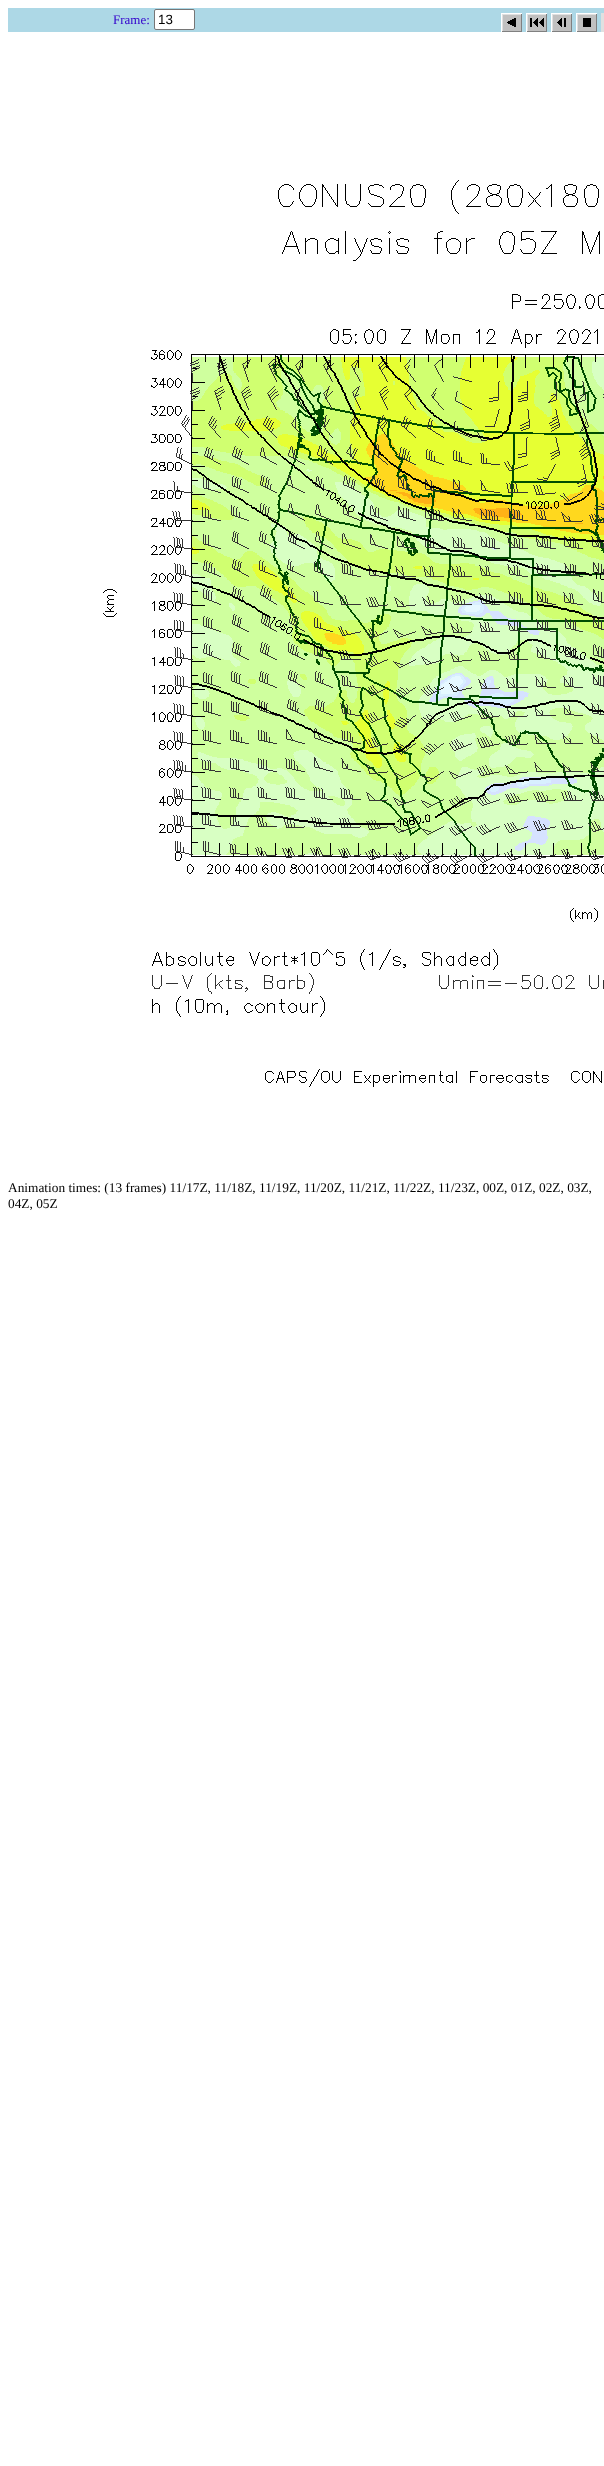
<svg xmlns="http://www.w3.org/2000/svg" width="604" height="2466">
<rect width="100%" height="100%" fill="#fff"/>
<rect x="8" y="8" width="596" height="24" fill="#add8e6"/>
<text x="113" y="24" style="font-family:Liberation Serif;font-size:13px;fill:#30c">Frame:</text>
<rect x="154.5" y="9.5" width="40" height="20" rx="1.5" fill="#fff" stroke="#767676"/>
<text x="158" y="24" style="font-family:Liberation Sans;font-size:13.35px;fill:#000">13</text>
<image x="501" y="13" width="21" height="19" href="media/1.png"/>
<image x="526" y="13" width="21" height="19" href="media/2.png"/>
<image x="551" y="13" width="21" height="19" href="media/3.png"/>
<image x="576" y="13" width="21" height="19" href="media/4.png"/>
<rect x="601" y="13" width="3" height="19" fill="#e0e0e0"/>
<image x="103" y="180" width="501" height="907" href="media/5.png"/>
<text x="8" y="1192" style="font-family:Liberation Serif;font-size:13.35px;fill:#000">Animation times: (13 frames) 11/17Z, 11/18Z, 11/19Z, 11/20Z, 11/21Z, 11/22Z, 11/23Z, 00Z, 01Z, 02Z, 03Z,</text>
<text x="8" y="1208" style="font-family:Liberation Serif;font-size:13.35px;fill:#000">04Z, 05Z</text>
</svg>
